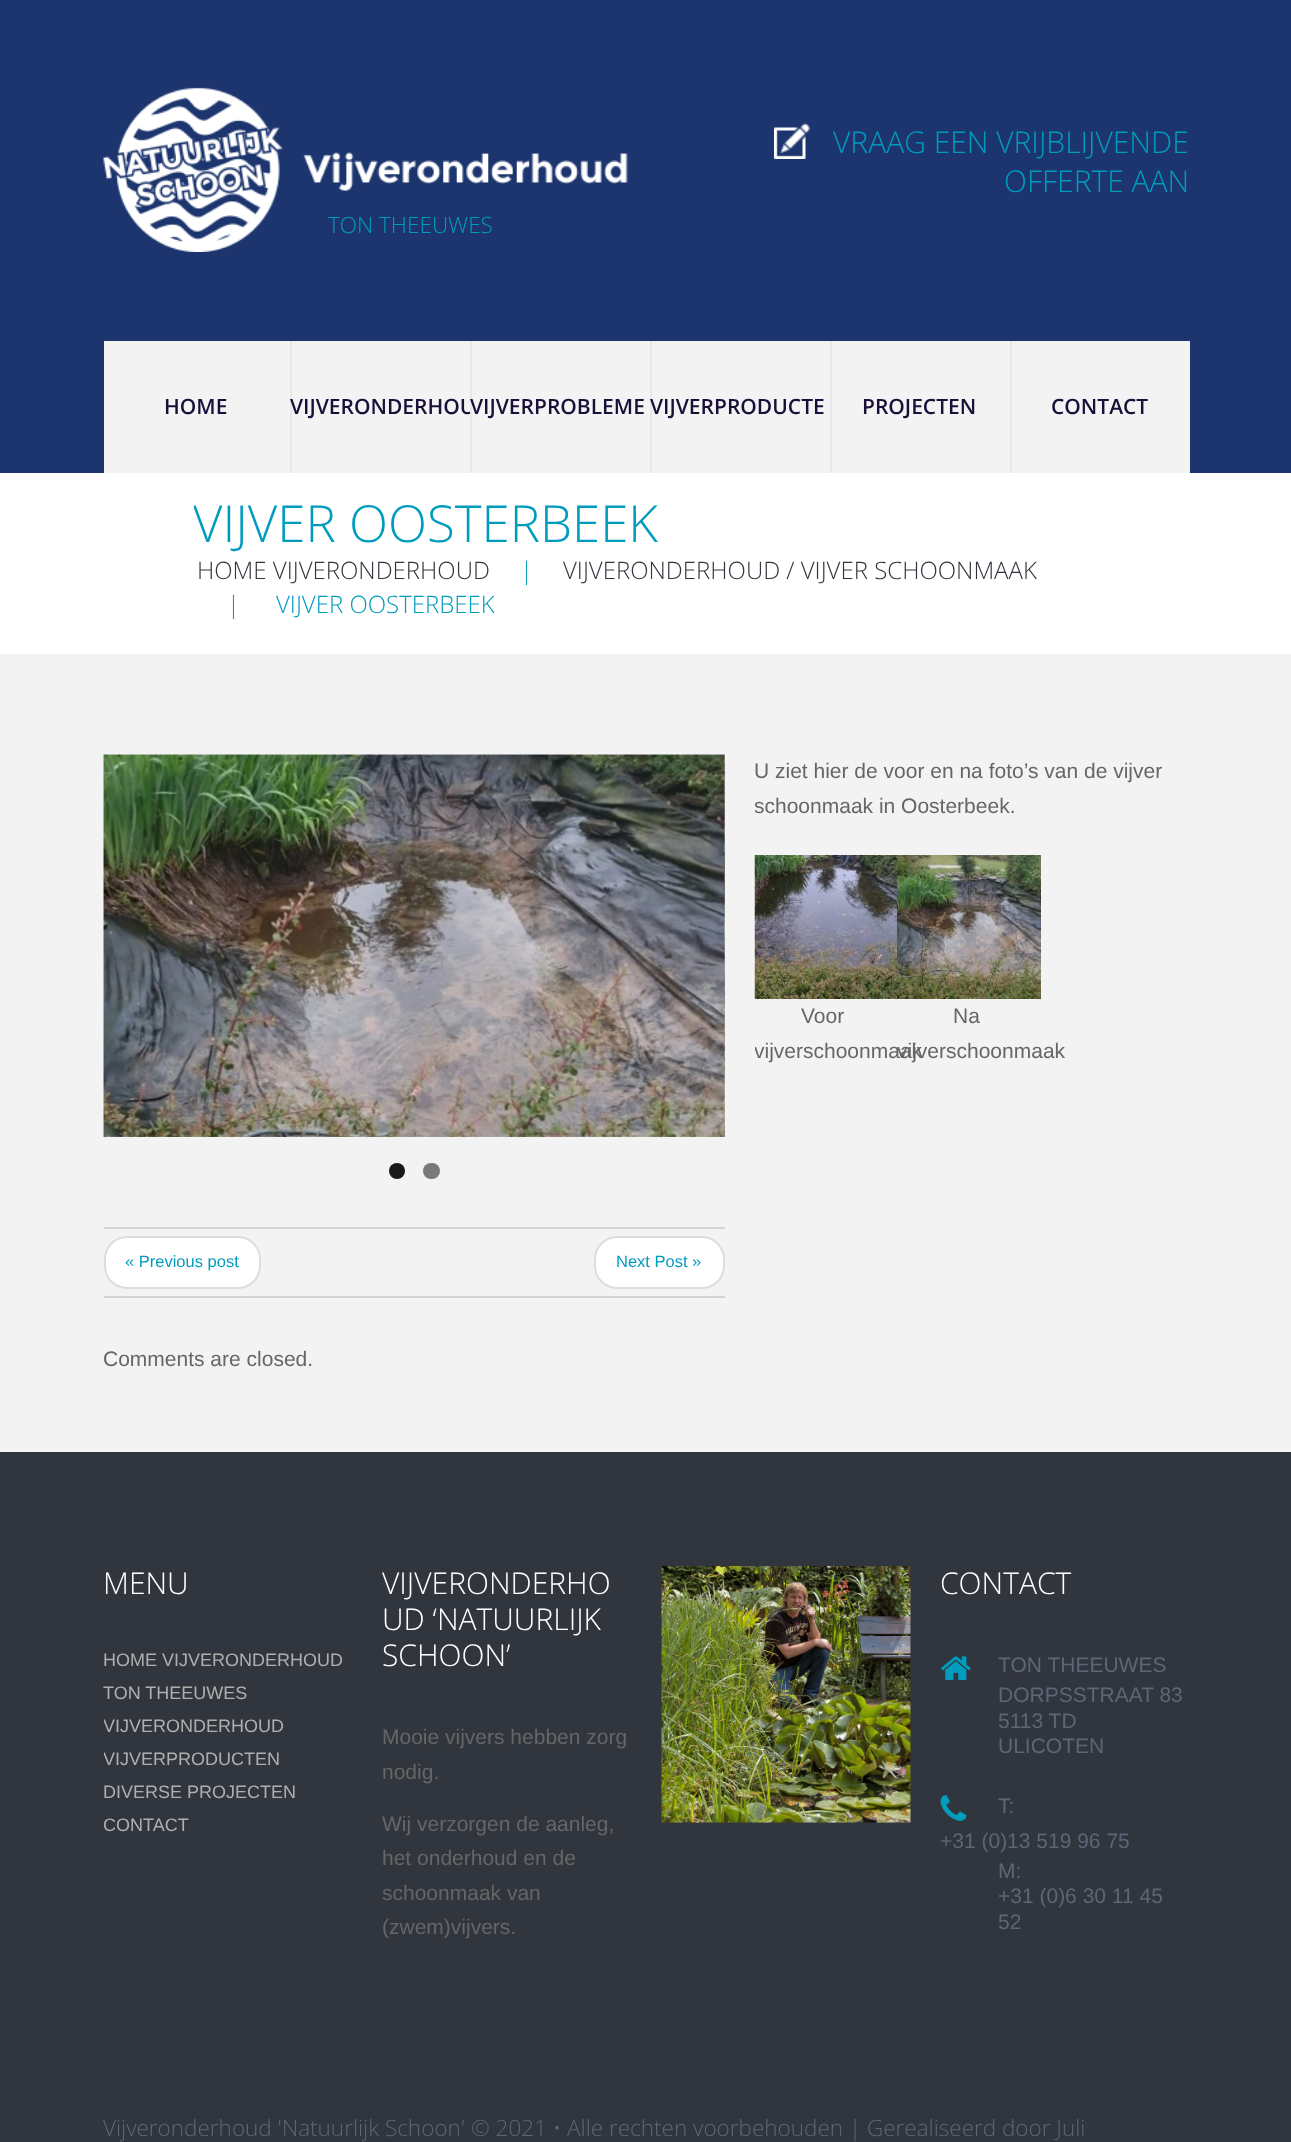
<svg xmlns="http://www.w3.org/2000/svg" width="1291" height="2142">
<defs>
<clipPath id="clip1"><rect x="194" y="492" width="906" height="62"/></clipPath>
<clipPath id="clip2"><rect x="755" y="755" width="435" height="313"/></clipPath>
<clipPath id="clip3"><rect x="104" y="1649" width="249" height="187"/></clipPath>
</defs>
<rect width="100%" height="100%" fill="#31353d"/>
<rect width="1291" height="473" fill="#1d356e"/>
<image x="774" y="123" width="36" height="36" href="media/1.png"/>
<text x="833" y="153" style="font-family:Open Sans;font-size:30px;font-weight:300;fill:#009cbe">VRAAG EEN VRIJBLIJVENDE</text>
<text x="1004" y="192" style="font-family:Open Sans;font-size:30px;font-weight:300;fill:#009cbe">OFFERTE AAN</text>
<image x="103" y="87" width="525" height="165" href="media/2.png"/>
<text x="328" y="233" style="font-family:Open Sans;font-size:22.5px;font-weight:300;fill:#009cbe">TON THEEUWES</text>
<rect x="104" y="341" width="186" height="132" fill="#f3f3f3"/>
<text x="164" y="414" style="font-family:Open Sans;font-size:21px;font-weight:600;fill:#1a0f39">HOME</text>
<rect x="292" y="341" width="178" height="132" fill="#f3f3f3"/>
<rect x="290" y="341" width="2" height="132" fill="#e8e8e8"/>
<text x="290" y="414" style="font-family:Open Sans;font-size:21px;font-weight:600;fill:#1a0f39">VIJVERONDERHOU</text>
<rect x="472" y="341" width="178" height="132" fill="#f3f3f3"/>
<rect x="470" y="341" width="2" height="132" fill="#e8e8e8"/>
<text x="470" y="414" style="font-family:Open Sans;font-size:21px;font-weight:600;fill:#1a0f39">VIJVERPROBLEME</text>
<rect x="652" y="341" width="178" height="132" fill="#f3f3f3"/>
<rect x="650" y="341" width="2" height="132" fill="#e8e8e8"/>
<text x="650" y="414" style="font-family:Open Sans;font-size:21px;font-weight:600;fill:#1a0f39">VIJVERPRODUCTE</text>
<rect x="832" y="341" width="178" height="132" fill="#f3f3f3"/>
<rect x="830" y="341" width="2" height="132" fill="#e8e8e8"/>
<text x="862" y="414" style="font-family:Open Sans;font-size:21px;font-weight:600;fill:#1a0f39">PROJECTEN</text>
<rect x="1012" y="341" width="178" height="132" fill="#f3f3f3"/>
<rect x="1010" y="341" width="2" height="132" fill="#e8e8e8"/>
<text x="1051" y="414" style="font-family:Open Sans;font-size:21px;font-weight:600;fill:#1a0f39">CONTACT</text>
<rect y="654" width="1291" height="798" fill="#f3f3f3"/>
<rect y="473" width="1291" height="181" fill="#fff"/>
<g clip-path="url(#clip1)">
<text x="193" y="542" style="font-family:Open Sans;font-size:51px;font-weight:300;fill:#009cbe">VIJVER OOSTERBEEK</text>
</g>
<text x="197" y="579" style="font-family:Open Sans;font-size:24px;font-weight:300;fill:#31353d">HOME VIJVERONDERHOUD</text>
<text x="520" y="579" style="font-family:Open Sans;font-size:24px;font-weight:300;fill:#009cbe">|</text>
<text x="563" y="579" style="font-family:Open Sans;font-size:24px;font-weight:300;fill:#31353d">VIJVERONDERHOUD / VIJVER SCHOONMAAK</text>
<text x="227" y="613" style="font-family:Open Sans;font-size:24px;font-weight:300;fill:#009cbe">|</text>
<text x="276" y="613" style="font-family:Open Sans;font-size:24px;font-weight:300;fill:#009cbe">VIJVER OOSTERBEEK</text>
<text x="754" y="778" style="font-family:Liberation Sans;font-size:21px;fill:#666">U ziet hier de voor en na foto’s van de vijver</text>
<g clip-path="url(#clip2)">
<text x="754" y="813" style="font-family:Liberation Sans;font-size:21px;fill:#666">schoonmaak in Oosterbeek.</text>
</g>
<image x="754" y="855" width="143" height="144" href="media/3.png"/>
<text x="801" y="1023" style="font-family:Liberation Sans;font-size:21px;fill:#666">Voor</text>
<g clip-path="url(#clip2)">
<text x="754" y="1058" style="font-family:Liberation Sans;font-size:21px;fill:#666">vijverschoonmaak</text>
</g>
<image x="897" y="855" width="144" height="144" href="media/4.png"/>
<text x="953" y="1023" style="font-family:Liberation Sans;font-size:21px;fill:#666">Na</text>
<text x="897" y="1058" style="font-family:Liberation Sans;font-size:21px;fill:#666">vijverschoonmaak</text>
<image x="103" y="754" width="622" height="383" href="media/5.png"/>
<image x="724" y="754" width="1" height="383" href="media/6.png"/>
<circle cx="397" cy="1171" r="8" fill="#181818"/>
<rect x="423" y="1163" width="17" height="16" rx="8" fill="#7a7a7a"/>
<rect x="104" y="1227" width="621" height="2" fill="#d3d3d2"/>
<rect x="104" y="1296" width="621" height="2" fill="#d3d3d2"/>
<rect x="105" y="1237" width="155" height="51" rx="22" fill="#fff" stroke="#ddd" stroke-width="2"/>
<text x="125" y="1267" style="font-family:Liberation Sans;font-size:16.5px;fill:#009cbe">« Previous post</text>
<rect x="595" y="1237" width="129" height="51" rx="22" fill="#fff" stroke="#ddd" stroke-width="2"/>
<text x="616" y="1267" style="font-family:Liberation Sans;font-size:16.5px;fill:#009cbe">Next Post »</text>
<text x="103" y="1366" style="font-family:Liberation Sans;font-size:21px;fill:#666">Comments are closed.</text>
<text x="103" y="1594" style="font-family:Open Sans;font-size:30px;font-weight:300;fill:#fff">MENU</text>
<text x="103" y="1666" style="font-family:Liberation Sans;font-size:18px;fill:#afafaf">HOME VIJVERONDERHOUD</text>
<text x="103" y="1699" style="font-family:Liberation Sans;font-size:18px;fill:#afafaf">TON THEEUWES</text>
<g clip-path="url(#clip3)">
<text x="103" y="1732" style="font-family:Liberation Sans;font-size:18px;fill:#afafaf">VIJVERONDERHOUD</text>
<text x="103" y="1765" style="font-family:Liberation Sans;font-size:18px;fill:#afafaf">VIJVERPRODUCTEN</text>
</g>
<text x="103" y="1798" style="font-family:Liberation Sans;font-size:18px;fill:#afafaf">DIVERSE PROJECTEN</text>
<g clip-path="url(#clip3)">
<text x="103" y="1831" style="font-family:Liberation Sans;font-size:18px;fill:#afafaf">CONTACT</text>
</g>
<text x="382" y="1594" style="font-family:Open Sans;font-size:30px;font-weight:300;fill:#fff">VIJVERONDERHO</text>
<text x="382" y="1630" style="font-family:Open Sans;font-size:30px;font-weight:300;fill:#fff">UD ‘NATUURLIJK</text>
<text x="382" y="1666" style="font-family:Open Sans;font-size:30px;font-weight:300;fill:#fff">SCHOON’</text>
<text x="382" y="1744" style="font-family:Liberation Sans;font-size:21px;fill:#666">Mooie vijvers hebben zorg</text>
<text x="382" y="1779" style="font-family:Liberation Sans;font-size:21px;fill:#666">nodig.</text>
<text x="382" y="1831" style="font-family:Liberation Sans;font-size:21px;fill:#666">Wij verzorgen de aanleg,</text>
<text x="382" y="1865" style="font-family:Liberation Sans;font-size:21px;fill:#666">het onderhoud en de</text>
<text x="382" y="1900" style="font-family:Liberation Sans;font-size:21px;fill:#666">schoonmaak van</text>
<text x="382" y="1934" style="font-family:Liberation Sans;font-size:21px;fill:#666">(zwem)vijvers.</text>
<image x="661" y="1566" width="250" height="257" href="media/7.png"/>
<text x="940" y="1594" style="font-family:Open Sans;font-size:30px;font-weight:300;fill:#fff">CONTACT</text>
<image x="941" y="1656" width="30" height="24" href="media/8.png"/>
<text x="998" y="1672" style="font-family:Liberation Sans;font-size:21px;fill:#5d6676">TON THEEUWES</text>
<text x="998" y="1702" style="font-family:Liberation Sans;font-size:21px;fill:#5d6676">DORPSSTRAAT 83</text>
<text x="998" y="1728" style="font-family:Liberation Sans;font-size:21px;fill:#5d6676">5113 TD</text>
<text x="998" y="1753" style="font-family:Liberation Sans;font-size:21px;fill:#5d6676">ULICOTEN</text>
<image x="940" y="1795" width="27" height="26" href="media/9.png"/>
<text x="998" y="1813" style="font-family:Liberation Sans;font-size:21px;fill:#5d6676">T:</text>
<text x="940" y="1848" style="font-family:Liberation Sans;font-size:21px;fill:#5d6676">+31 (0)13 519 96 75</text>
<text x="998" y="1878" style="font-family:Liberation Sans;font-size:21px;fill:#5d6676">M:</text>
<text x="998" y="1903" style="font-family:Liberation Sans;font-size:21px;fill:#5d6676">+31 (0)6 30 11 45</text>
<text x="998" y="1929" style="font-family:Liberation Sans;font-size:21px;fill:#5d6676">52</text>
<text x="103" y="2136" style="font-family:Open Sans;font-size:22.5px;font-weight:300;fill:#5d6676">Vijveronderhoud 'Natuurlijk Schoon' © 2021 • Alle rechten voorbehouden | Gerealiseerd door Juli</text>
</svg>
